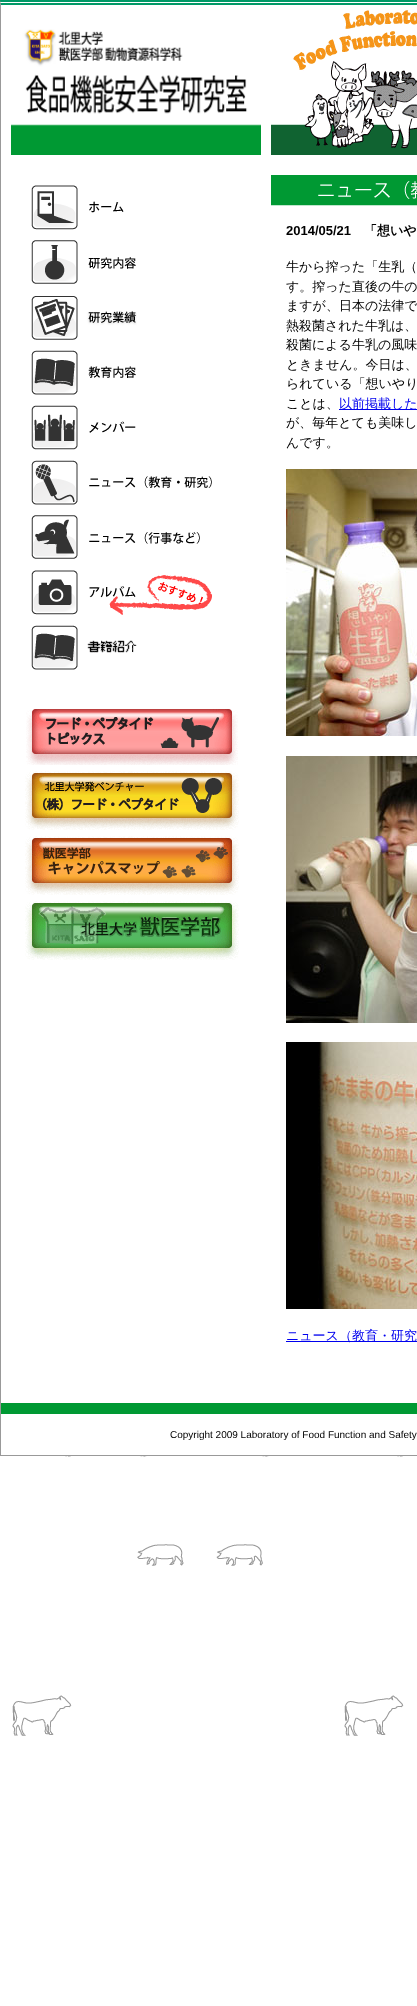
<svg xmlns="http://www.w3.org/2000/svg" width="417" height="2006">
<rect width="100%" height="100%" fill="#fff"/>
<image x="12" y="1456" width="399" height="280" href="media/1.png"/>
<rect width="417" height="2" fill="#096"/>
<rect y="3" width="417" height="2" fill="#096"/>
<rect y="1455" width="417" height="1" fill="#999"/>
<path d="M0 1456v-1456l1 5v1450z" fill="#999"/>
<image x="11" y="29" width="250" height="126" href="media/2.png"/>
<image x="31" y="185" width="93" height="45" href="media/3.png"/>
<image x="31" y="240" width="105" height="44" href="media/4.png"/>
<image x="31" y="296" width="106" height="44" href="media/5.png"/>
<image x="31" y="350" width="105" height="45" href="media/6.png"/>
<image x="31" y="405" width="105" height="45" href="media/7.png"/>
<image x="31" y="460" width="181" height="45" href="media/8.png"/>
<image x="31" y="515" width="169" height="44" href="media/9.png"/>
<image x="31" y="570" width="181" height="45" href="media/10.png"/>
<image x="31" y="625" width="106" height="45" href="media/11.png"/>
<image x="26" y="709" width="212" height="56" href="media/12.png"/>
<image x="25" y="771" width="214" height="59" href="media/13.png"/>
<image x="25" y="836" width="214" height="59" href="media/14.png"/>
<image x="25" y="901" width="214" height="59" href="media/15.png"/>
<image x="271" y="10" width="146" height="145" href="media/16.png"/>
<image x="271" y="175" width="146" height="31" href="media/17.png"/>
<text x="286" y="235" style="font-family:Liberation Sans;font-size:13px;font-weight:bold;fill:#000">2014/05/21</text>
<text x="364" y="235" style="font-family:WenQuanYi Zen Hei;font-size:13px;font-weight:bold;fill:#000">「想いや</text>
<text x="286" y="271" style="font-family:WenQuanYi Zen Hei;font-size:13px;font-weight:500;fill:#000">牛から搾った「生乳（</text>
<text x="286" y="291" style="font-family:WenQuanYi Zen Hei;font-size:13px;font-weight:500;fill:#000">す。搾った直後の牛の</text>
<text x="286" y="310" style="font-family:WenQuanYi Zen Hei;font-size:13px;font-weight:500;fill:#000">ますが、日本の法律で</text>
<text x="286" y="330" style="font-family:WenQuanYi Zen Hei;font-size:13px;font-weight:500;fill:#000">熱殺菌された牛乳は、</text>
<text x="286" y="349" style="font-family:WenQuanYi Zen Hei;font-size:13px;font-weight:500;fill:#000">殺菌による牛乳の風味</text>
<text x="286" y="369" style="font-family:WenQuanYi Zen Hei;font-size:13px;font-weight:500;fill:#000">ときません。今日は、</text>
<text x="286" y="388" style="font-family:WenQuanYi Zen Hei;font-size:13px;font-weight:500;fill:#000">られている「想いやり</text>
<text x="286" y="408" style="font-family:WenQuanYi Zen Hei;font-size:13px;font-weight:500;fill:#000">ことは、</text>
<rect x="339" y="409" width="78" height="1" fill="#00e"/>
<text x="339" y="408" style="font-family:WenQuanYi Zen Hei;font-size:13px;font-weight:500;fill:#00e">以前掲載した</text>
<text x="286" y="427" style="font-family:WenQuanYi Zen Hei;font-size:13px;font-weight:500;fill:#000">が、毎年とても美味し</text>
<text x="286" y="447" style="font-family:WenQuanYi Zen Hei;font-size:13px;font-weight:500;fill:#000">んです。</text>
<image x="286" y="469" width="131" height="267" href="media/18.png"/>
<image x="286" y="756" width="131" height="267" href="media/19.png"/>
<image x="286" y="1042" width="131" height="267" href="media/20.png"/>
<rect x="286" y="1341" width="131" height="1" fill="#00e"/>
<text x="286" y="1340" style="font-family:WenQuanYi Zen Hei;font-size:13px;font-weight:500;fill:#00e">ニュース（教育・研究</text>
<rect x="1" y="1403" width="416" height="11" fill="#093"/>
<text x="170" y="1438" style="font-family:Liberation Sans;font-size:10px;fill:#000">Copyright 2009 Laboratory of Food Function and Safety</text>
</svg>
